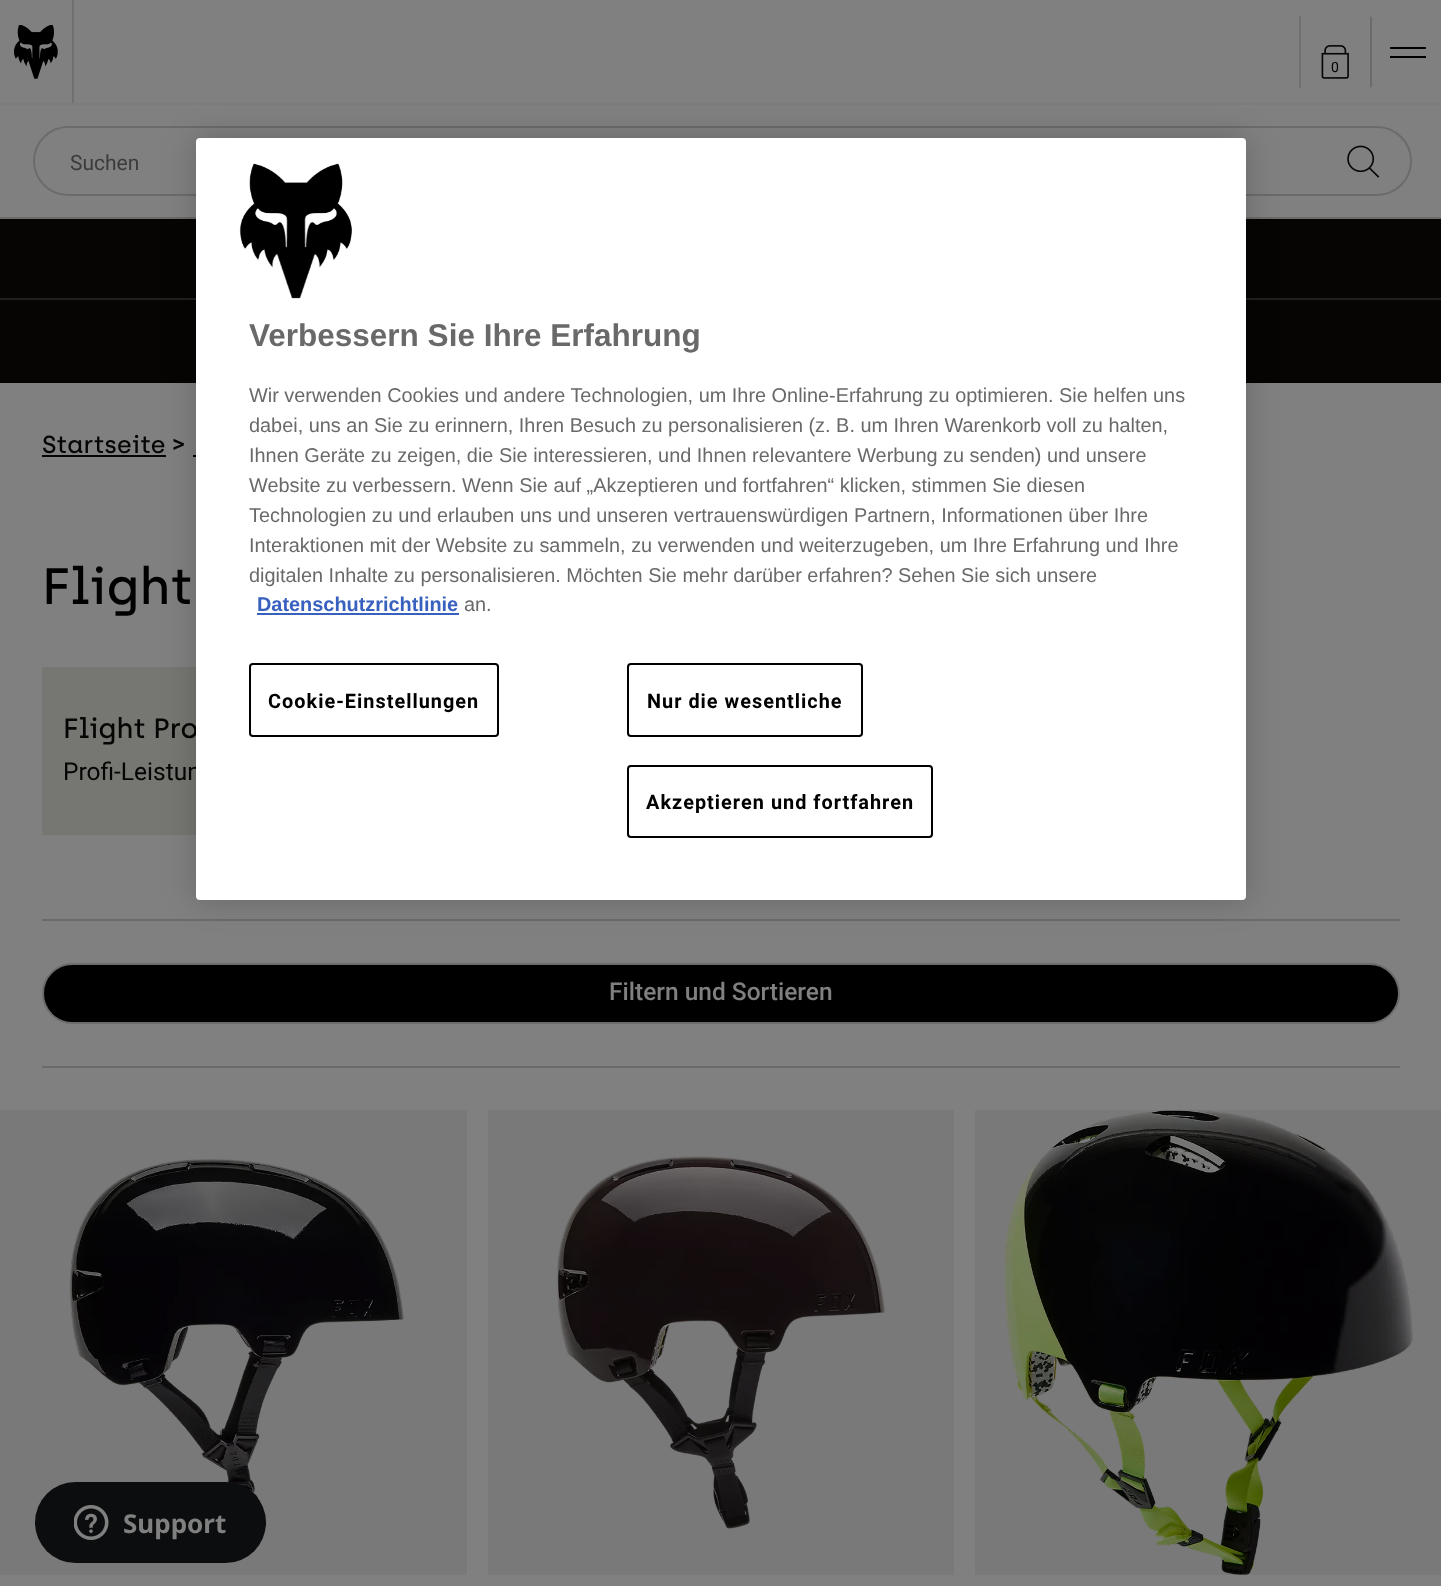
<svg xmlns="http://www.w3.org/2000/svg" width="1441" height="1586">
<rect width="100%" height="100%" fill="#808080"/>
<rect y="217" width="1441" height="2" fill="#6b6b6b"/>
<rect y="103" width="1441" height="2" fill="#7c7c7c"/>
<rect x="72" width="2" height="103" fill="#707070"/>
<image x="14" y="25" width="44" height="54" href="media/1.png"/>
<rect x="1299" y="16" width="2" height="72" fill="#707070"/>
<image x="1321" y="45" width="28" height="34" href="media/2.png"/>
<text x="1331" y="72" style="font-family:Roboto;font-size:14px;fill:#000">0</text>
<path d="M1370 88v-72l2 2v68z" fill="#6b6b6b"/>
<rect x="1390" y="47" width="36" height="2" fill="#000"/>
<rect x="1390" y="56" width="36" height="2" fill="#000"/>
<rect x="34" y="127" width="1377" height="68" rx="34" fill="none" stroke="#6b6b6b" stroke-width="2"/>
<text x="70" y="170" style="font-family:Roboto;font-size:21px;fill:#3b3b3b">Suchen</text>
<image x="1347" y="145" width="33" height="33" href="media/3.png"/>
<rect y="219" width="1441" height="164" fill="#060504"/>
<rect y="298" width="1441" height="2" fill="#202020"/>
<text x="42" y="453" style="font-family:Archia;font-size:24.5px;font-weight:500;fill:#060504">Startseite</text>
<rect x="42" y="455" width="124" height="2" fill="#060504"/>
<text x="172" y="452" style="font-family:Roboto;font-size:24.5px;font-weight:500;fill:#060504">&gt;</text>
<rect x="193" y="455" width="3" height="2" fill="#060504"/>
<text x="42" y="604" style="font-family:Archia;font-size:51px;font-weight:500;fill:#000">Flight</text>
<rect x="42" y="667" width="154" height="168" fill="#767772"/>
<text x="63" y="738" style="font-family:Archia;font-size:28px;font-weight:500;fill:#060504">Flight Pro</text>
<text x="63" y="780" style="font-family:Roboto;font-size:24.5px;fill:#060504">Profi-Leistun</text>
<rect x="42" y="919" width="1358" height="2" fill="#6b6b6b"/>
<rect x="42" y="1066" width="1358" height="2" fill="#6b6b6b"/>
<rect x="43" y="964" width="1356" height="59" rx="29.5" fill="#000" stroke="#6b6b6b" stroke-width="2"/>
<text x="609" y="1000" style="font-family:Roboto;font-size:24.5px;font-weight:500;fill:#808080">Filtern und Sortieren</text>
<rect y="1110" width="467" height="465" fill="#797979"/>
<image x="70" y="1159" width="334" height="368" href="media/4.png"/>
<rect x="488" y="1110" width="466" height="465" fill="#797979"/>
<image x="556" y="1156" width="330" height="373" href="media/5.png"/>
<rect x="975" y="1110" width="466" height="465" fill="#797979"/>
<image x="1004" y="1109" width="409" height="466" href="media/6.png"/>
<rect x="35" y="1482" width="231" height="81" rx="40.5" fill="#0c0d0e"/>
<image x="74" y="1505" width="35" height="35" href="media/7.png"/>
<text x="123" y="1533" style="font-family:Noto Sans;font-size:26px;font-weight:bold;fill:#808080">Support</text>
<rect x="196" y="138" width="1050" height="762" rx="4" fill="#00000033" filter="blur(16px)"/>
<rect x="196" y="138" width="1050" height="762" rx="4" fill="#fff"/>
<image x="239" y="163" width="113" height="136" href="media/8.png"/>
<text x="249" y="346" style="font-family:Liberation Sans;font-size:31.5px;font-weight:bold;fill:#696969">Verbessern Sie Ihre Erfahrung</text>
<text x="249" y="402" style="font-family:Liberation Sans;font-size:19.9px;fill:#696969">Wir verwenden Cookies und andere Technologien, um Ihre Online-Erfahrung zu optimieren. Sie helfen uns</text>
<text x="249" y="432" style="font-family:Liberation Sans;font-size:19.9px;fill:#696969">dabei, uns an Sie zu erinnern, Ihren Besuch zu personalisieren (z. B. um Ihren Warenkorb voll zu halten,</text>
<text x="249" y="462" style="font-family:Liberation Sans;font-size:19.9px;fill:#696969">Ihnen Geräte zu zeigen, die Sie interessieren, und Ihnen relevantere Werbung zu senden) und unsere</text>
<text x="249" y="492" style="font-family:Liberation Sans;font-size:19.9px;fill:#696969">Website zu verbessern. Wenn Sie auf „Akzeptieren und fortfahren“ klicken, stimmen Sie diesen</text>
<text x="249" y="522" style="font-family:Liberation Sans;font-size:19.9px;fill:#696969">Technologien zu und erlauben uns und unseren vertrauenswürdigen Partnern, Informationen über Ihre</text>
<text x="249" y="552" style="font-family:Liberation Sans;font-size:19.9px;fill:#696969">Interaktionen mit der Website zu sammeln, zu verwenden und weiterzugeben, um Ihre Erfahrung und Ihre</text>
<text x="249" y="582" style="font-family:Liberation Sans;font-size:19.9px;fill:#696969">digitalen Inhalte zu personalisieren. Möchten Sie mehr darüber erfahren? Sehen Sie sich unsere</text>
<text x="257" y="611" style="font-family:Liberation Sans;font-size:19.9px;font-weight:bold;fill:#3860be">Datenschutzrichtlinie</text>
<rect x="257" y="613" width="202" height="2" fill="#3860be"/>
<text x="464" y="611" style="font-family:Liberation Sans;font-size:19.9px;fill:#696969">an.</text>
<rect x="250" y="664" width="248" height="72" rx="3" fill="none" stroke="#000" stroke-width="2"/>
<text x="268" y="708" style="font-family:Roboto;font-size:19.9px;font-weight:bold;letter-spacing:1px;fill:#000">Cookie-Einstellungen</text>
<rect x="628" y="664" width="234" height="72" rx="3" fill="none" stroke="#000" stroke-width="2"/>
<text x="647" y="708" style="font-family:Roboto;font-size:19.9px;font-weight:bold;letter-spacing:1px;fill:#000">Nur die wesentliche</text>
<rect x="628" y="766" width="304" height="71" rx="3" fill="none" stroke="#000" stroke-width="2"/>
<text x="646" y="809" style="font-family:Roboto;font-size:19.9px;font-weight:bold;letter-spacing:1px;fill:#000">Akzeptieren und fortfahren</text>
</svg>
